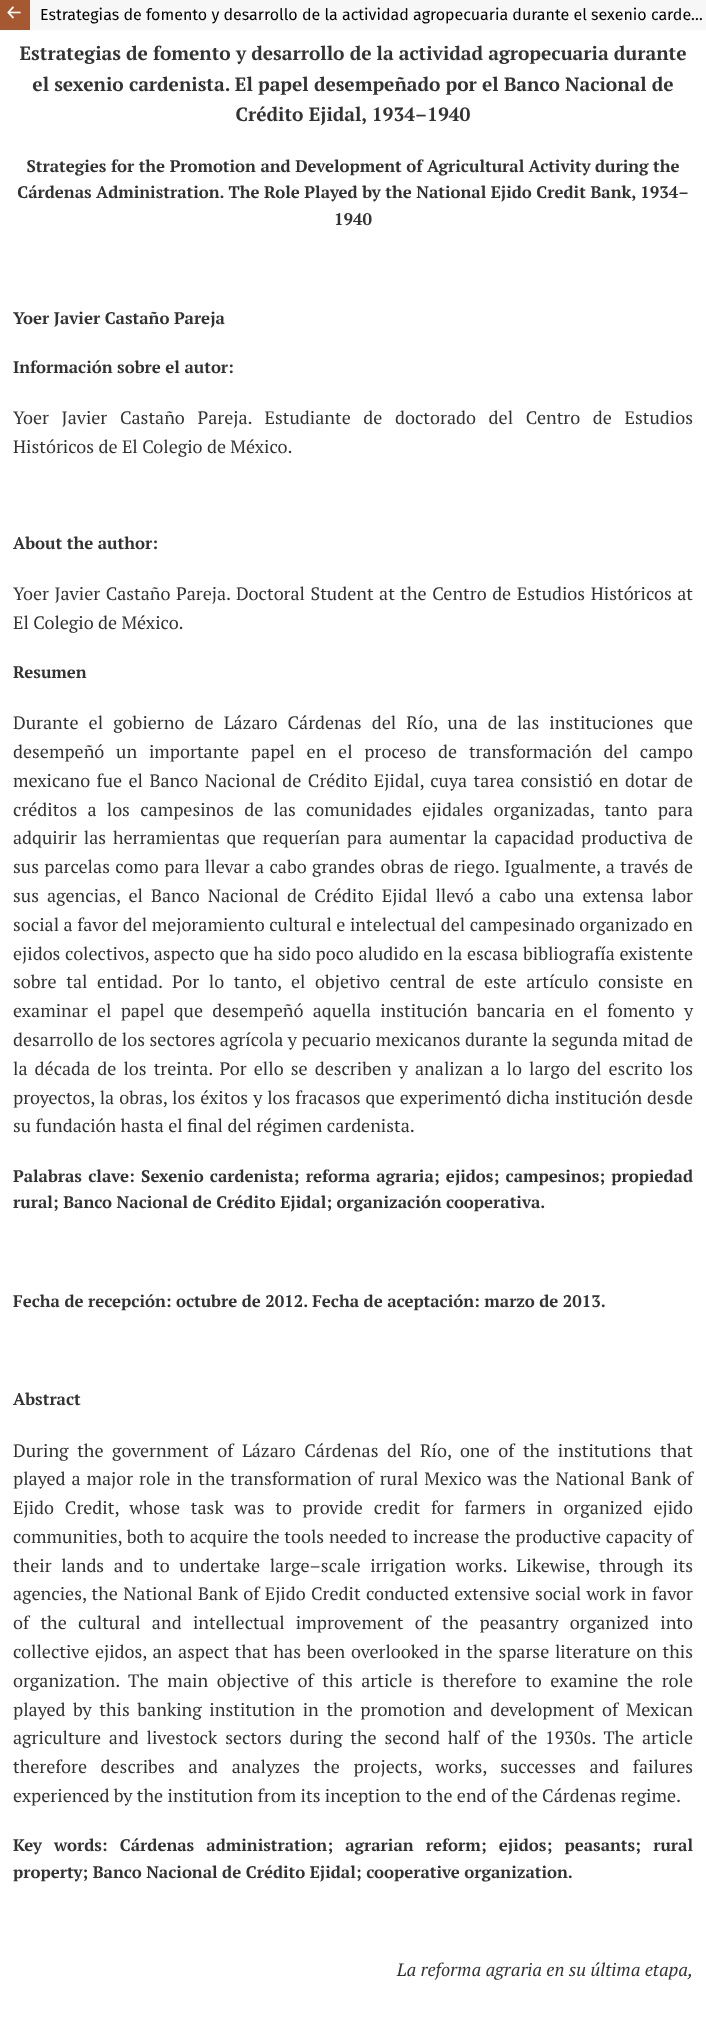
<svg xmlns="http://www.w3.org/2000/svg" width="706" height="2019">
<rect width="100%" height="100%" fill="#fff"/>
<rect x="30" width="676" height="30" fill="#f7f7f7"/>
<rect width="30" height="30" fill="#a65830"/>
<text x="5" y="19" style="font-family:Fira Sans;font-size:20px;fill:#fff">←</text>
<text x="40" y="20" style="font-family:Fira Sans;font-size:16px;fill:#000">Estrategias de fomento y desarrollo de la actividad agropecuaria durante el sexenio carde…</text>
<image x="13" y="45" width="681" height="1935" href="media/1.png"/>
</svg>
